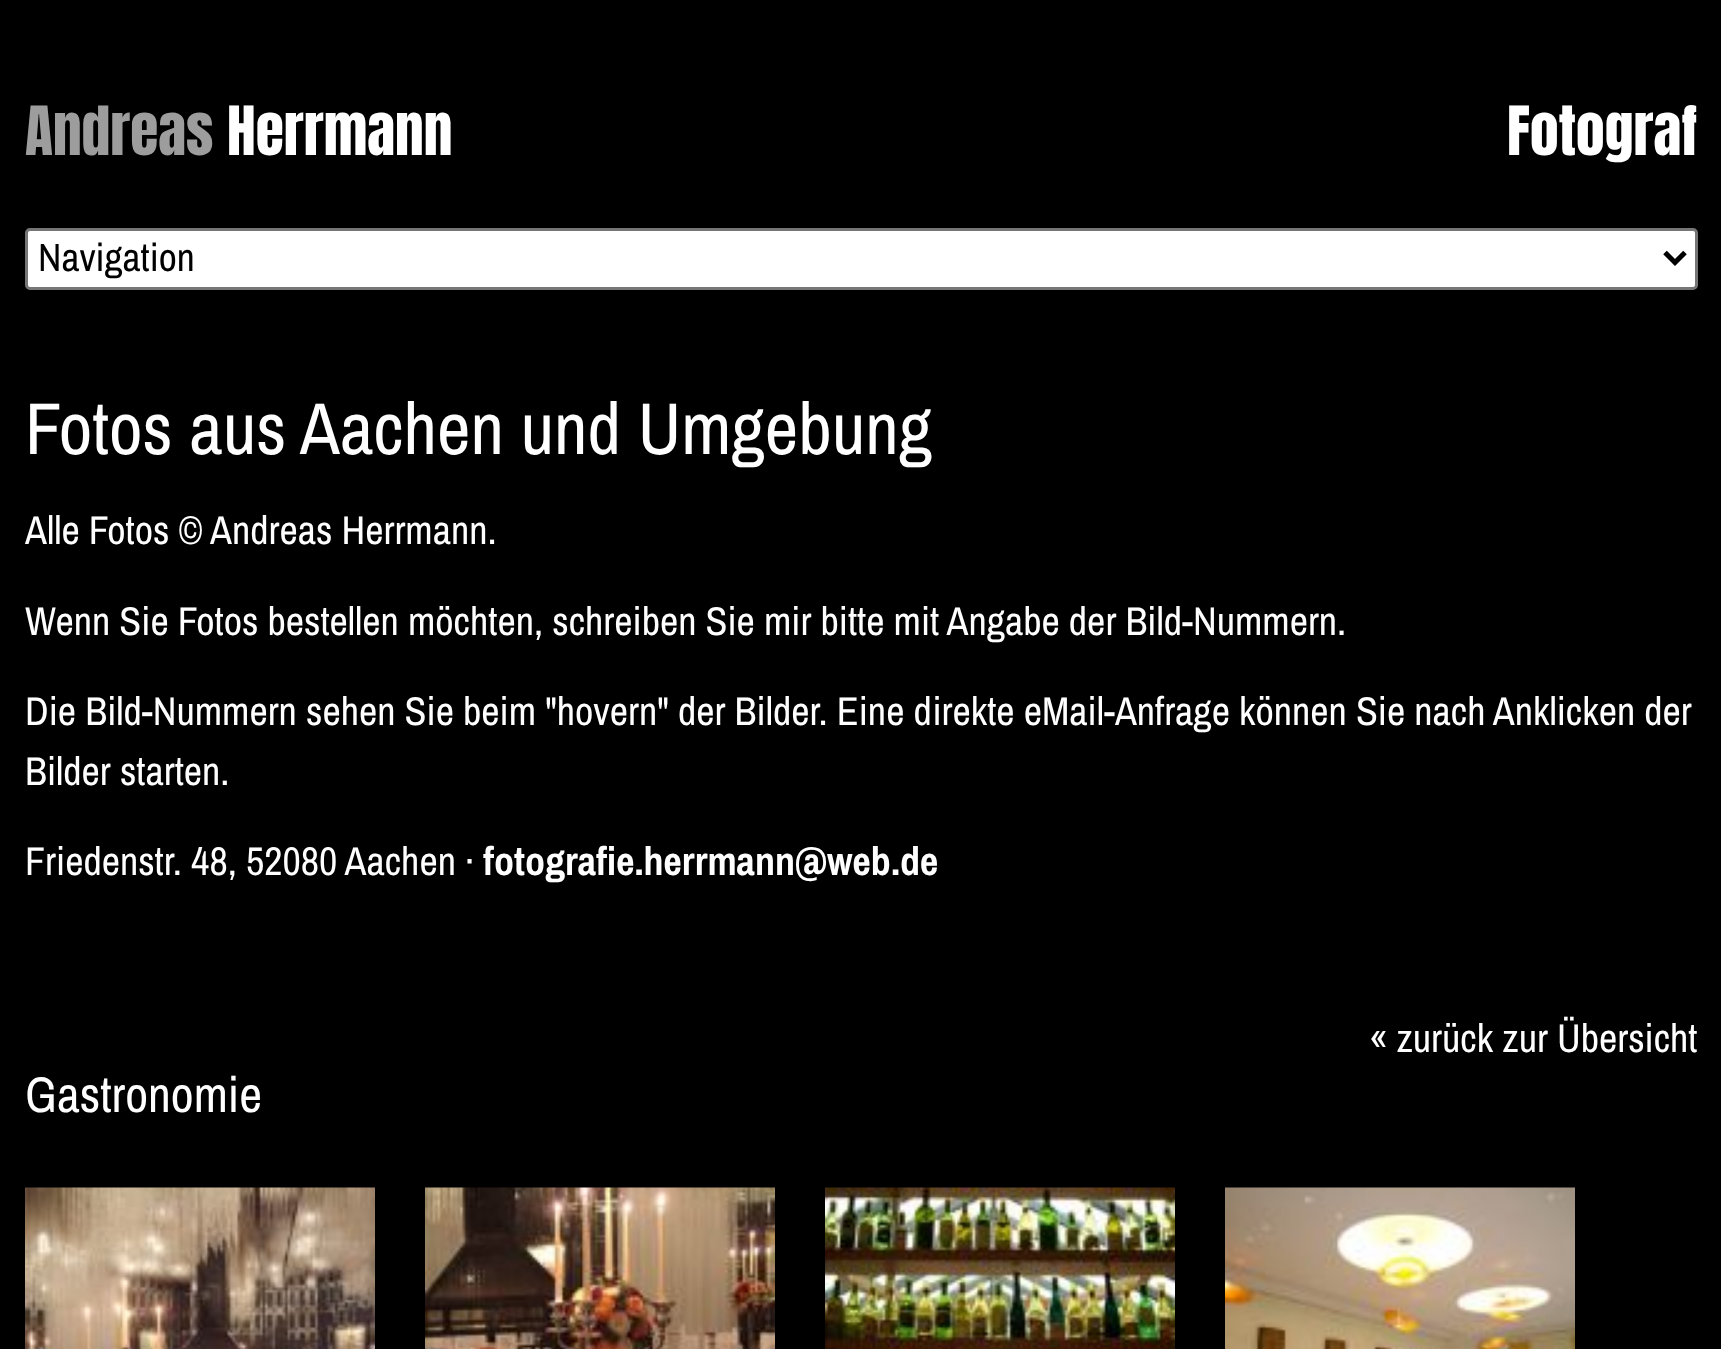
<svg xmlns="http://www.w3.org/2000/svg" width="1721" height="1349">
<rect width="100%" height="100%" fill="#000"/>
<text x="25" y="155" style="font-family:Anton;font-size:57.5px;fill:#9d9d9d">Andreas</text>
<text x="227" y="155" style="font-family:Anton;font-size:57.5px;fill:#fff">Herrmann</text>
<text x="1507" y="155" style="font-family:Anton;font-size:57.5px;fill:#fff">Fotograf</text>
<rect x="26.5" y="229.5" width="1670" height="59" rx="3.5" fill="#fff" stroke="#767676" stroke-width="3"/>
<path d="M1665 252.5l10 10l10-10" fill="none" stroke="#000" stroke-width="5"/>
<text x="38" y="271" style="font-family:Archivo Narrow;font-size:39.5px;fill:#000">Navigation</text>
<text x="25" y="454" style="font-family:Archivo Narrow;font-size:73.4px;fill:#fff">Fotos aus Aachen und Umgebung</text>
<text x="25" y="544" style="font-family:Archivo Narrow;font-size:40.05px;fill:#fff">Alle Fotos © Andreas Herrmann.</text>
<text x="25" y="635" style="font-family:Archivo Narrow;font-size:40.05px;fill:#fff">Wenn Sie Fotos bestellen möchten, schreiben Sie mir bitte mit Angabe der Bild-Nummern.</text>
<text x="25" y="725" style="font-family:Archivo Narrow;font-size:40.05px;fill:#fff">Die Bild-Nummern sehen Sie beim "hovern" der Bilder. Eine direkte eMail-Anfrage können Sie nach Anklicken der</text>
<text x="25" y="785" style="font-family:Archivo Narrow;font-size:40.05px;fill:#fff">Bilder starten.</text>
<text x="25" y="875" style="font-family:Archivo Narrow;font-size:40.05px;fill:#fff">Friedenstr. 48, 52080 Aachen ·</text>
<text x="483" y="875" style="font-family:Archivo Narrow;font-size:40.05px;font-weight:bold;fill:#fff">fotografie.herrmann@web.de</text>
<text x="1369" y="1052" style="font-family:Archivo Narrow;font-size:40.05px;fill:#fff">« zurück zur Übersicht</text>
<text x="25" y="1112" style="font-family:Archivo Narrow;font-size:50px;fill:#fff">Gastronomie</text>
<image x="25" y="1187" width="350" height="162" href="media/1.png"/>
<image x="425" y="1187" width="350" height="162" href="media/2.png"/>
<image x="825" y="1187" width="350" height="162" href="media/3.png"/>
<image x="1225" y="1187" width="350" height="162" href="media/4.png"/>
</svg>
